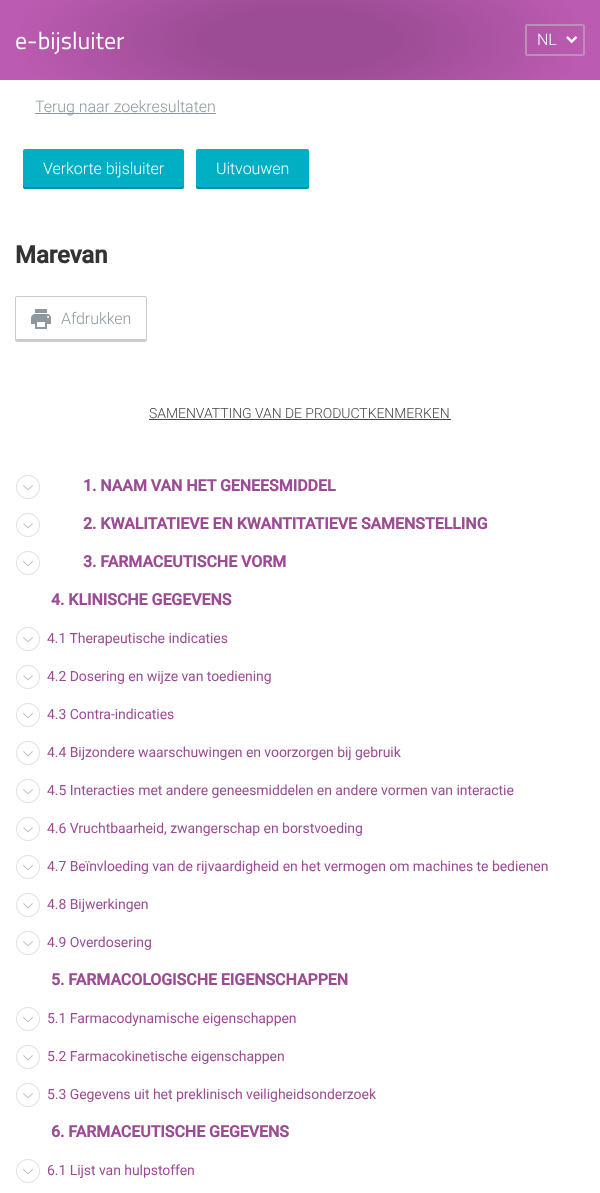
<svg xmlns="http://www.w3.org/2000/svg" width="600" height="1193">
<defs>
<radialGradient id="g1" gradientUnits="userSpaceOnUse" cx="0" cy="0" r="1" gradientTransform="matrix(288 0 0 98 300 40)"><stop offset="0.33" stop-color="#9c4c94"/><stop offset="1" stop-color="#bb5bb1"/></radialGradient>
</defs>
<rect width="100%" height="100%" fill="#fff"/>
<rect width="600" height="80" fill="url(#g1)"/>
<text x="15" y="49" style="font-family:Titillium Web;font-size:24px;fill:#fff">e-bijsluiter</text>
<rect x="526" y="25" width="58" height="30" rx="1" fill="none" stroke="#bb8fb7" stroke-width="2"/>
<text x="537" y="45" style="font-family:Roboto;font-size:16px;font-weight:300;letter-spacing:-0.05px;fill:#fff">NL</text>
<image x="566" y="36" width="12" height="8" href="media/1.png"/>
<rect x="35" y="113" width="181" height="1" fill="#8e999f"/>
<text x="35" y="112" style="font-family:Roboto;font-size:16px;font-weight:300;letter-spacing:-0.05px;fill:#8e999f">Terug naar zoekresultaten</text>
<rect x="23" y="149" width="161" height="40" rx="2" fill="#00afc3"/>
<path d="M23 185c0 2 0 4 2 4h157c2 0 2-2 2-4c0 1-1 2-2 2h-157c-1 0-2-1-2-2z" fill="#00000033"/>
<text x="43" y="174" style="font-family:Roboto;font-size:16px;font-weight:300;letter-spacing:-0.05px;fill:#fff">Verkorte bijsluiter</text>
<rect x="196" y="149" width="113" height="40" rx="2" fill="#00afc3"/>
<path d="M196 185v2c0 1 1 2 2 2h109c1 0 2-1 2-2v-2c0 1-1 2-2 2h-109c-1 0-2-1-2-2z" fill="#00000033"/>
<text x="216" y="174" style="font-family:Roboto;font-size:16px;font-weight:300;letter-spacing:-0.05px;fill:#fff">Uitvouwen</text>
<text x="15" y="263" style="font-family:Roboto;font-size:24px;font-weight:bold;letter-spacing:-0.05px;fill:#333">Marevan</text>
<image x="31" y="309" width="20" height="20" href="media/2.png"/>
<path d="M16 338c0 1 0 3 1 3h128c1-1 1-2 1-3c0 1 0 1-1 1h-128c-1 0-1 0-1-1z" fill="#ccc"/>
<rect x="15.5" y="296.5" width="131" height="45" rx="1.5" fill="none" stroke="#ccc"/>
<text x="61" y="324" style="font-family:Roboto;font-size:16px;font-weight:300;letter-spacing:-0.05px;fill:#8e999f">Afdrukken</text>
<text x="149" y="418" style="font-family:Roboto;font-size:14px;font-weight:300;letter-spacing:-0.05px;fill:#474747">SAMENVATTING VAN DE PRODUCTKENMERKEN</text>
<rect x="149" y="419" width="302" height="1" fill="#474747"/>
<image x="16" y="475" width="24" height="24" href="media/3.png"/>
<text x="83" y="491" style="font-family:Roboto;font-size:16px;font-weight:bold;letter-spacing:-0.05px;fill:#9c4c94">1. NAAM VAN HET GENEESMIDDEL</text>
<image x="16" y="513" width="24" height="24" href="media/3.png"/>
<text x="83" y="529" style="font-family:Roboto;font-size:16px;font-weight:bold;letter-spacing:-0.05px;fill:#9c4c94">2. KWALITATIEVE EN KWANTITATIEVE SAMENSTELLING</text>
<image x="16" y="551" width="24" height="24" href="media/3.png"/>
<text x="83" y="567" style="font-family:Roboto;font-size:16px;font-weight:bold;letter-spacing:-0.05px;fill:#9c4c94">3. FARMACEUTISCHE VORM</text>
<text x="51" y="605" style="font-family:Roboto;font-size:16px;font-weight:bold;letter-spacing:-0.05px;fill:#9c4c94">4. KLINISCHE GEGEVENS</text>
<image x="16" y="627" width="24" height="24" href="media/3.png"/>
<text x="47" y="643" style="font-family:Roboto;font-size:14px;letter-spacing:-0.05px;fill:#9c4c94">4.1 Therapeutische indicaties</text>
<image x="16" y="665" width="24" height="24" href="media/3.png"/>
<text x="47" y="681" style="font-family:Roboto;font-size:14px;letter-spacing:-0.05px;fill:#9c4c94">4.2 Dosering en wijze van toediening</text>
<image x="16" y="703" width="24" height="24" href="media/3.png"/>
<text x="47" y="719" style="font-family:Roboto;font-size:14px;letter-spacing:-0.05px;fill:#9c4c94">4.3 Contra-indicaties</text>
<image x="16" y="741" width="24" height="24" href="media/3.png"/>
<text x="47" y="757" style="font-family:Roboto;font-size:14px;letter-spacing:-0.05px;fill:#9c4c94">4.4 Bijzondere waarschuwingen en voorzorgen bij gebruik</text>
<image x="16" y="779" width="24" height="24" href="media/3.png"/>
<text x="47" y="795" style="font-family:Roboto;font-size:14px;letter-spacing:-0.05px;fill:#9c4c94">4.5 Interacties met andere geneesmiddelen en andere vormen van interactie</text>
<image x="16" y="817" width="24" height="24" href="media/3.png"/>
<text x="47" y="833" style="font-family:Roboto;font-size:14px;letter-spacing:-0.05px;fill:#9c4c94">4.6 Vruchtbaarheid, zwangerschap en borstvoeding</text>
<image x="16" y="855" width="24" height="24" href="media/3.png"/>
<text x="47" y="871" style="font-family:Roboto;font-size:14px;letter-spacing:-0.05px;fill:#9c4c94">4.7 Beïnvloeding van de rijvaardigheid en het vermogen om machines te bedienen</text>
<image x="16" y="893" width="24" height="24" href="media/3.png"/>
<text x="47" y="909" style="font-family:Roboto;font-size:14px;letter-spacing:-0.05px;fill:#9c4c94">4.8 Bijwerkingen</text>
<image x="16" y="931" width="24" height="24" href="media/3.png"/>
<text x="47" y="947" style="font-family:Roboto;font-size:14px;letter-spacing:-0.05px;fill:#9c4c94">4.9 Overdosering</text>
<text x="51" y="985" style="font-family:Roboto;font-size:16px;font-weight:bold;letter-spacing:-0.05px;fill:#9c4c94">5. FARMACOLOGISCHE EIGENSCHAPPEN</text>
<image x="16" y="1007" width="24" height="24" href="media/3.png"/>
<text x="47" y="1023" style="font-family:Roboto;font-size:14px;letter-spacing:-0.05px;fill:#9c4c94">5.1 Farmacodynamische eigenschappen</text>
<image x="16" y="1045" width="24" height="24" href="media/3.png"/>
<text x="47" y="1061" style="font-family:Roboto;font-size:14px;letter-spacing:-0.05px;fill:#9c4c94">5.2 Farmacokinetische eigenschappen</text>
<image x="16" y="1083" width="24" height="24" href="media/3.png"/>
<text x="47" y="1099" style="font-family:Roboto;font-size:14px;letter-spacing:-0.05px;fill:#9c4c94">5.3 Gegevens uit het preklinisch veiligheidsonderzoek</text>
<text x="51" y="1137" style="font-family:Roboto;font-size:16px;font-weight:bold;letter-spacing:-0.05px;fill:#9c4c94">6. FARMACEUTISCHE GEGEVENS</text>
<image x="16" y="1159" width="24" height="24" href="media/3.png"/>
<text x="47" y="1175" style="font-family:Roboto;font-size:14px;letter-spacing:-0.05px;fill:#9c4c94">6.1 Lijst van hulpstoffen</text>
</svg>
